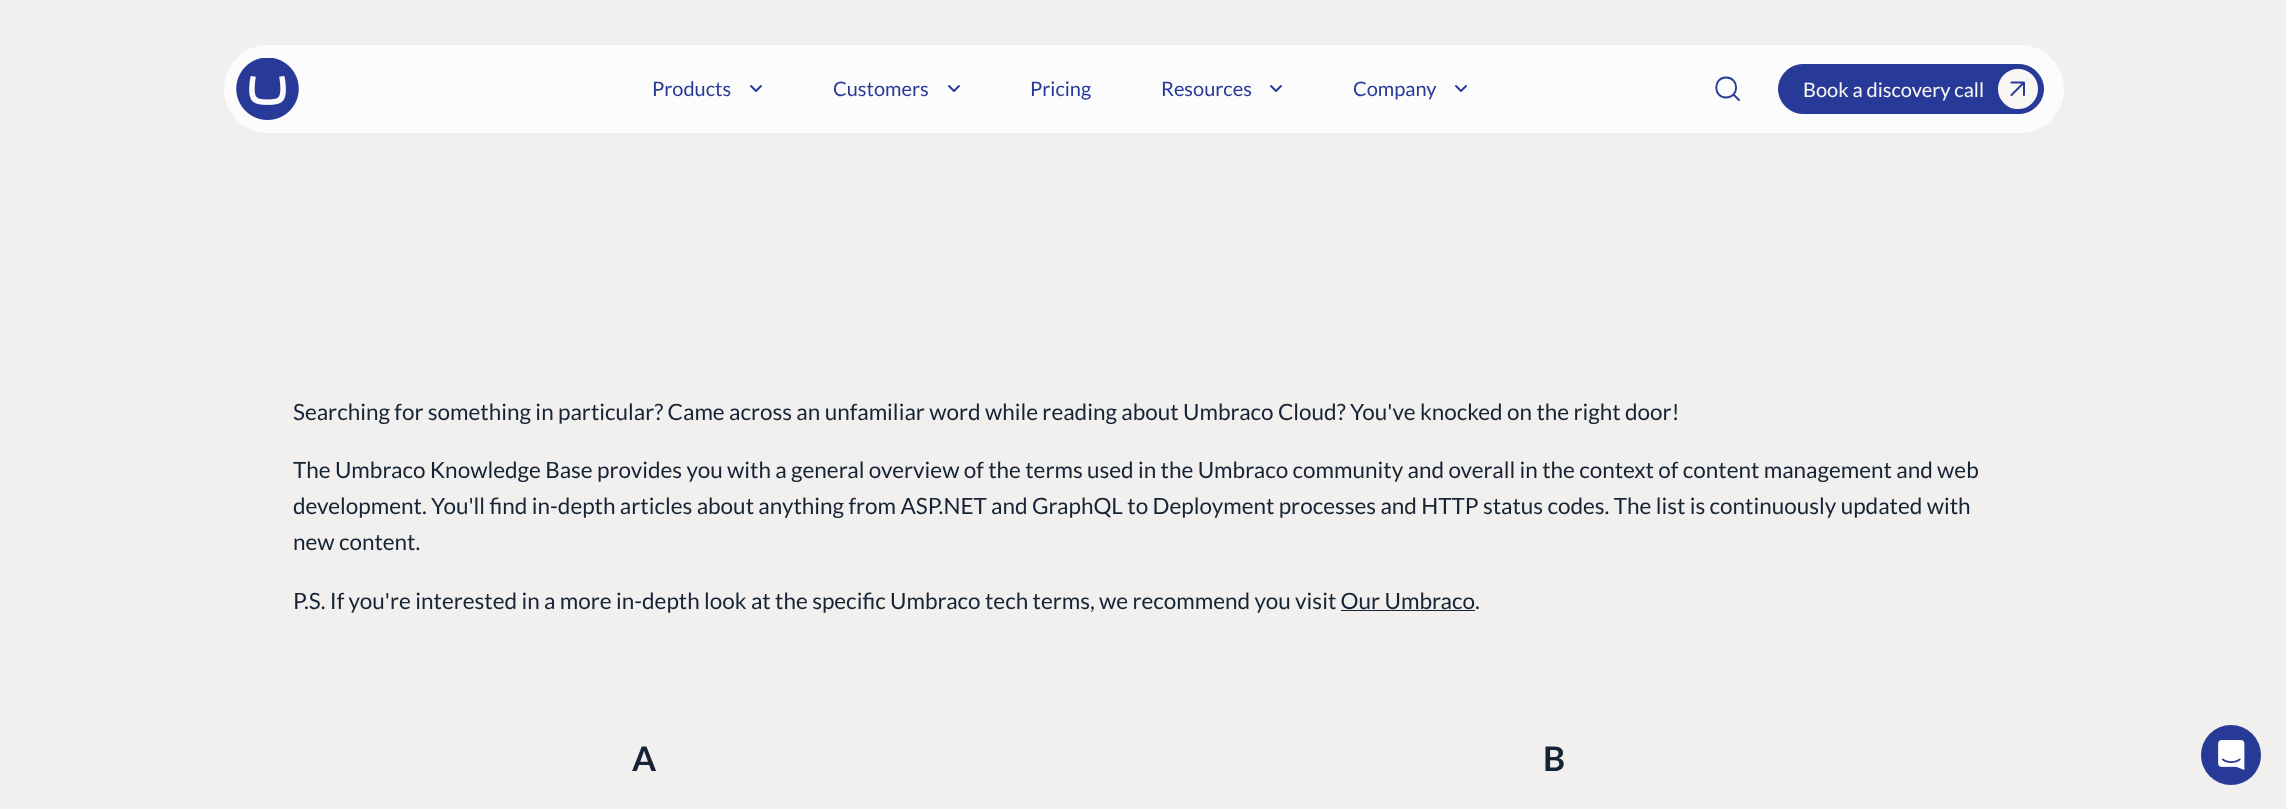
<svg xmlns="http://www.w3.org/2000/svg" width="2286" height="809">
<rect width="100%" height="100%" fill="#f1f0ee"/>
<rect x="224" y="45" width="1840" height="88" rx="44" fill="#ffffffcc"/>
<image x="236" y="58" width="63" height="62" href="media/1.png"/>
<text x="652" y="96" style="font-family:Lato;font-size:20px;fill:#283a97">Products</text>
<path d="M751 86l5 5l5-5" fill="none" stroke="#283a97" stroke-width="1.9" stroke-linecap="round" stroke-linejoin="round"/>
<text x="833" y="96" style="font-family:Lato;font-size:20px;fill:#283a97">Customers</text>
<path d="M949 86l5 5l5-5" fill="none" stroke="#283a97" stroke-width="1.9" stroke-linecap="round" stroke-linejoin="round"/>
<text x="1030" y="96" style="font-family:Lato;font-size:20px;fill:#283a97">Pricing</text>
<text x="1161" y="96" style="font-family:Lato;font-size:20px;fill:#283a97">Resources</text>
<path d="M1271 86l5 5l5-5" fill="none" stroke="#283a97" stroke-width="1.9" stroke-linecap="round" stroke-linejoin="round"/>
<text x="1353" y="96" style="font-family:Lato;font-size:20px;fill:#283a97">Company</text>
<path d="M1456 86l5 5l5-5" fill="none" stroke="#283a97" stroke-width="1.9" stroke-linecap="round" stroke-linejoin="round"/>
<path d="M1726 97.5c13.5 0 13.5-20 0-20c-13 0-13 20 0 20zm13 2.5l-5.5-5.5" fill="none" stroke="#283a97" stroke-width="1.9" stroke-linecap="round" stroke-linejoin="round"/>
<rect x="1778.5" y="64.5" width="265" height="49" rx="24.5" fill="#283a97" stroke="#283a97"/>
<text x="1803" y="97" style="font-family:Lato;font-size:20px;fill:#f9f7f4">Book a discovery call</text>
<circle cx="2018" cy="89" r="17.5" fill="#f9f7f4" stroke="#f9f7f4" stroke-width="5"/>
<path d="M2011.5 82.5h12.5v12.5m-12.5 0l12.5-12.5" fill="none" stroke="#283a97" stroke-width="2" stroke-linecap="round" stroke-linejoin="round"/>
<text x="293" y="420" style="font-family:Lato;font-size:22.5px;fill:#162335">Searching for something in particular? Came across an unfamiliar word while reading about Umbraco Cloud? You've knocked on the right door!</text>
<text x="293" y="478" style="font-family:Lato;font-size:22.5px;fill:#162335">The Umbraco Knowledge Base provides you with a general overview of the terms used in the Umbraco community and overall in the context of content management and web</text>
<text x="293" y="514" style="font-family:Lato;font-size:22.5px;fill:#162335">development. You'll find in-depth articles about anything from ASP.NET and GraphQL to Deployment processes and HTTP status codes. The list is continuously updated with</text>
<text x="293" y="550" style="font-family:Lato;font-size:22.5px;fill:#162335">new content.</text>
<text x="293" y="609" style="font-family:Lato;font-size:22.5px;fill:#162335">P.S. If you're interested in a more in-depth look at the specific Umbraco tech terms, we recommend you visit Our Umbraco.</text>
<rect x="1341" y="610" width="134" height="1" fill="#162335"/>
<text x="632" y="771" style="font-family:Lato;font-size:34px;font-weight:bold;fill:#162335">A</text>
<text x="1543" y="771" style="font-family:Lato;font-size:34px;font-weight:bold;fill:#162335">B</text>
<circle cx="2231" cy="755" r="30" fill="#283a97"/>
<image x="2218" y="740" width="27" height="30" href="media/2.png"/>
</svg>
